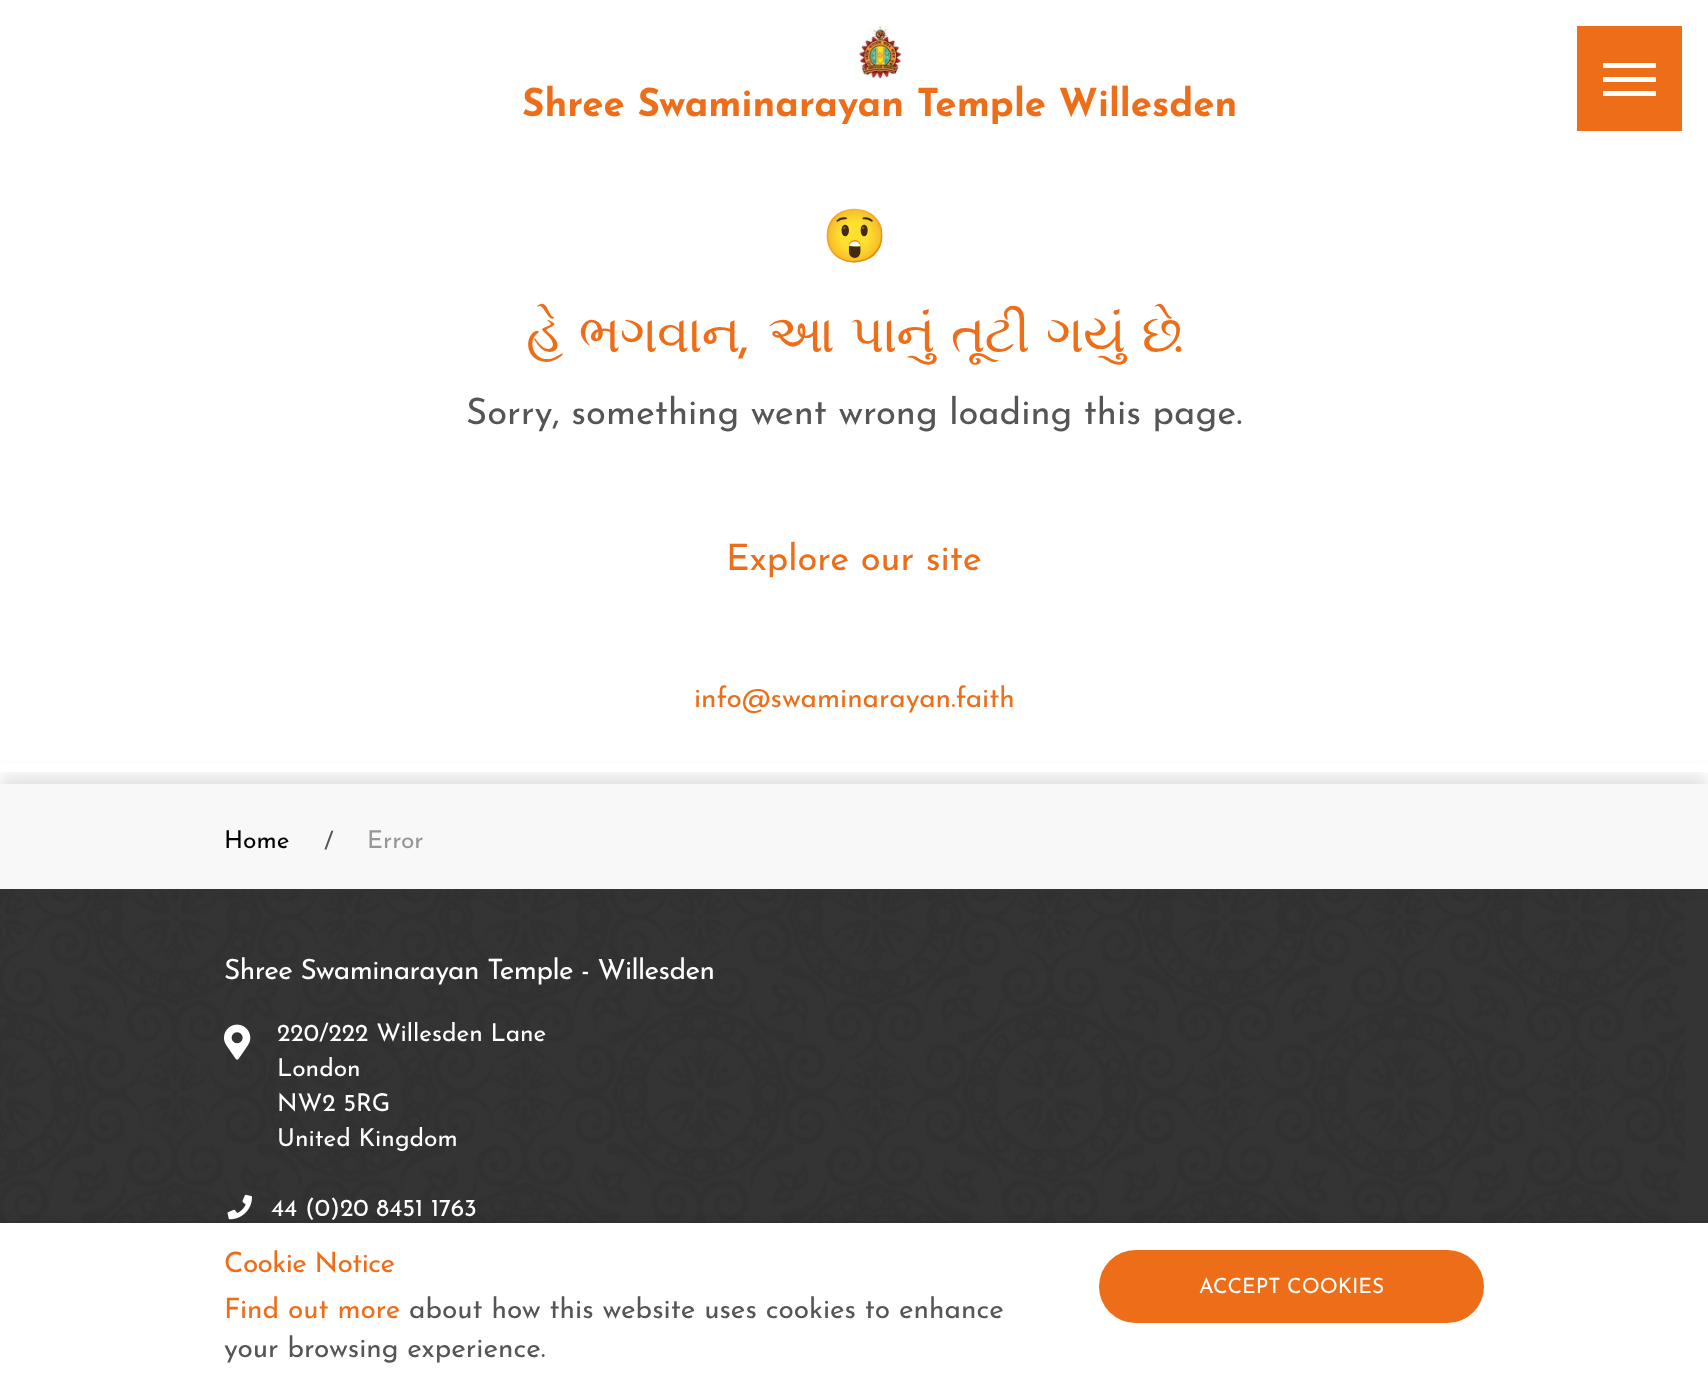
<svg xmlns="http://www.w3.org/2000/svg" width="1708" height="1395">
<rect width="100%" height="100%" fill="#fff"/>
<image x="854" y="26" width="53" height="53" href="media/1.png"/>
<text x="522" y="116" style="font-family:Josefin Sans;font-size:38.5px;font-weight:bold;fill:#ed6d19">Shree Swaminarayan Temple Willesden</text>
<rect x="1577" y="26" width="105" height="105" fill="#ed6d19"/>
<rect x="1603" y="63" width="53" height="5" fill="#fff"/>
<rect x="1603" y="77" width="53" height="5" fill="#fff"/>
<rect x="1603" y="91" width="53" height="5" fill="#fff"/>
<rect y="889" width="1708" height="334" fill="#343434"/>
<image x="0" y="891" width="1685" height="332" href="media/2.png"/>
<rect y="777" width="1708" height="105" fill="#32323229" filter="blur(9px)"/>
<rect y="764" width="1708" height="8" fill="#fff"/>
<text x="822" y="254" style="font-family:Noto Color Emoji;font-size:52.5px;letter-spacing:-1.05px;fill:#ed6d19">😲</text>
<text x="526" y="352" word-spacing="4.5" style="font-family:FreeSerif;font-size:52.5px;letter-spacing:-1.05px;fill:#ed6d19">હે ભગવાન</text>
<text x="738" y="352" style="font-family:Josefin Sans;font-size:52.5px;font-weight:500;letter-spacing:-1.05px;fill:#ed6d19">,</text>
<text x="768" y="352" word-spacing="4.5" style="font-family:FreeSerif;font-size:52.5px;letter-spacing:-1.05px;fill:#ed6d19">આ પાનું તૂટી ગયું છે</text>
<text x="1174" y="352" style="font-family:Josefin Sans;font-size:52.5px;font-weight:500;letter-spacing:-1.05px;fill:#ed6d19">.</text>
<text x="466" y="424" style="font-family:Josefin Sans;font-size:36.4px;font-weight:100;fill:#555">Sorry, something went wrong loading this page.</text>
<text x="726" y="570" style="font-family:Josefin Sans;font-size:36.4px;font-weight:100;fill:#ed6d19">Explore our site</text>
<text x="694" y="707" style="font-family:Josefin Sans;font-size:28px;font-weight:100;fill:#ed6d19">info@swaminarayan.faith</text>
<rect y="784" width="1708" height="105" fill="#f8f8f8"/>
<text x="224" y="848" style="font-family:Josefin Sans;font-size:24.5px;font-weight:100;fill:#000">Home</text>
<text x="324" y="849" style="font-family:Josefin Sans;font-size:24.5px;font-weight:100;fill:#555">/</text>
<text x="367" y="848" style="font-family:Josefin Sans;font-size:24.5px;font-weight:100;fill:#969696">Error</text>
<text x="224" y="979" style="font-family:Josefin Sans;font-size:28px;font-weight:100;letter-spacing:-0.55px;fill:#fff">Shree Swaminarayan Temple - Willesden</text>
<image x="224" y="1024" width="27" height="36" href="media/3.png"/>
<text x="277" y="1041" style="font-family:Josefin Sans;font-size:24.5px;font-weight:100;fill:#fff">220/222 Willesden Lane</text>
<text x="277" y="1076" style="font-family:Josefin Sans;font-size:24.5px;font-weight:100;fill:#fff">London</text>
<text x="277" y="1111" style="font-family:Josefin Sans;font-size:24.5px;font-weight:100;fill:#fff">NW2 5RG</text>
<text x="277" y="1146" style="font-family:Josefin Sans;font-size:24.5px;font-weight:100;fill:#fff">United Kingdom</text>
<image x="227" y="1194" width="25" height="26" href="media/4.png"/>
<text x="271" y="1216" style="font-family:Josefin Sans;font-size:24.5px;font-weight:100;fill:#fff">44 (0)20 8451 1763</text>
<rect y="1223" width="1708" height="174" fill="#0000001a" filter="blur(4.5px)"/>
<rect y="1223" width="1708" height="172" fill="#fff"/>
<text x="224" y="1272" style="font-family:Josefin Sans;font-size:28px;font-weight:100;letter-spacing:-0.55px;fill:#ed6d19">Cookie Notice</text>
<text x="224" y="1318" style="font-family:Josefin Sans;font-size:28px;font-weight:100;fill:#ed6d19">Find out more</text>
<text x="409" y="1318" style="font-family:Josefin Sans;font-size:28px;font-weight:100;fill:#555">about how this website uses cookies to enhance</text>
<text x="224" y="1357" style="font-family:Josefin Sans;font-size:28px;font-weight:100;fill:#555">your browsing experience.</text>
<rect x="1099" y="1250" width="385" height="73" rx="36.5" fill="#ed6d19"/>
<text x="1199" y="1293" style="font-family:Josefin Sans;font-size:21px;font-weight:100;fill:#fff">ACCEPT COOKIES</text>
</svg>
